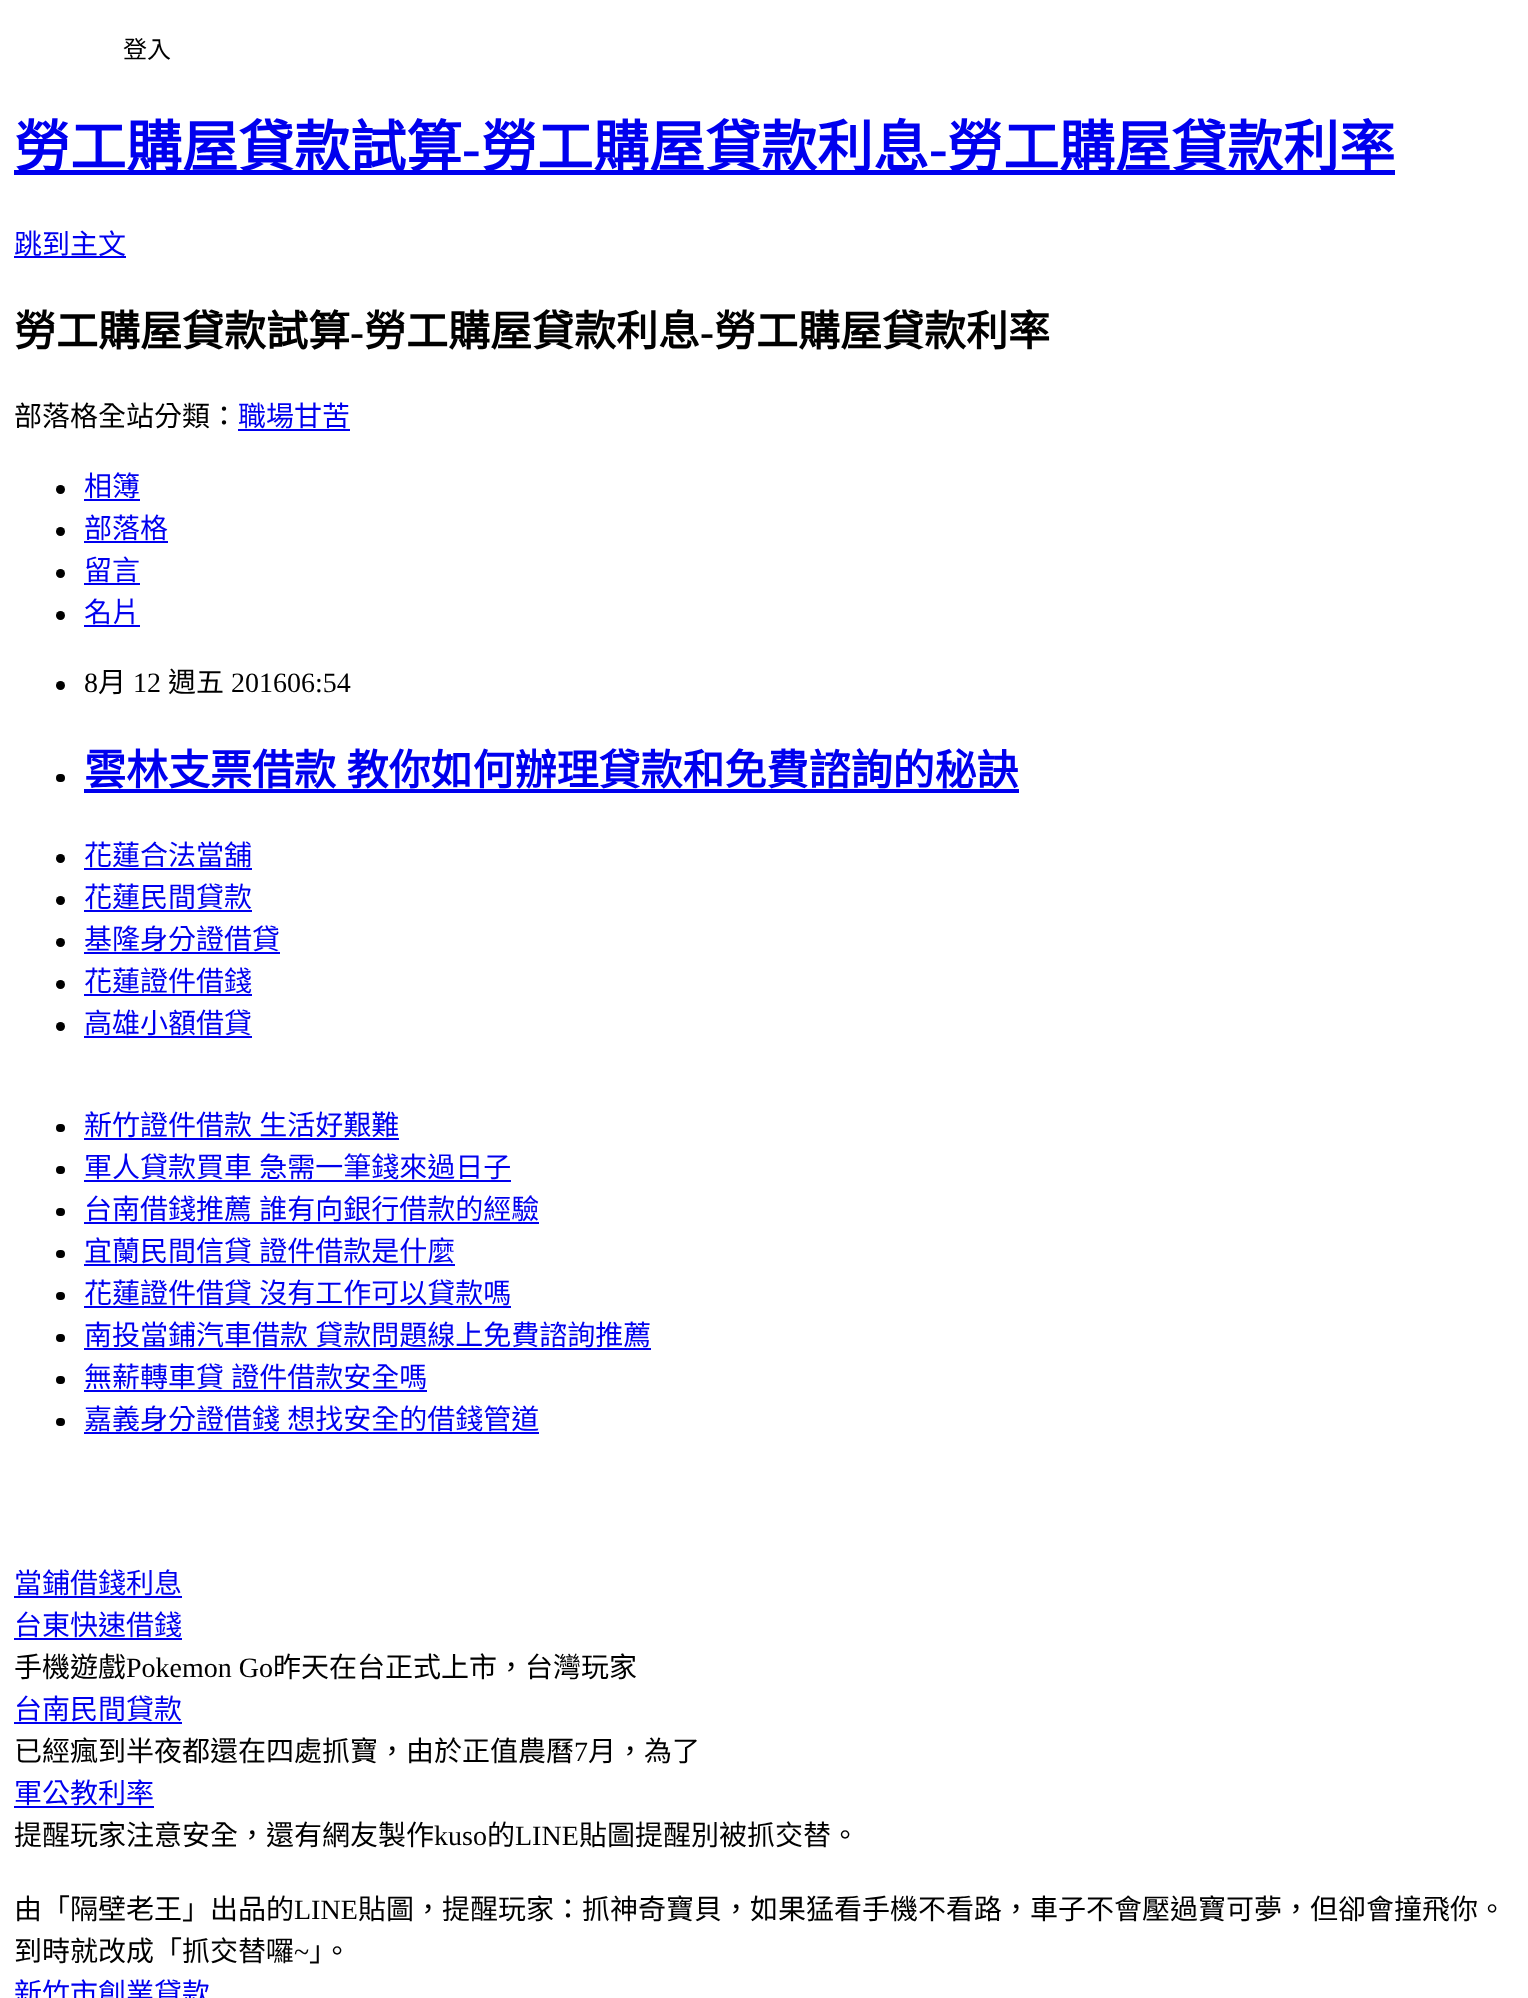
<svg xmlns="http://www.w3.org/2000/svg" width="1528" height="1998">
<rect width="100%" height="100%" fill="#fff"/>
<text x="123" y="58" style="font-family:Noto Sans CJK TC;font-size:24px;fill:#000">登入</text>
<rect x="14" y="170" width="1381" height="5" fill="#00e"/>
<text x="14" y="167" style="font-family:Noto Sans CJK TC;font-size:56px;font-weight:bold;fill:#00e">勞工購屋貸款試算</text>
<text x="462" y="167" style="font-family:Liberation Serif;font-size:56px;font-weight:bold;fill:#00e">-</text>
<text x="481" y="167" style="font-family:Noto Sans CJK TC;font-size:56px;font-weight:bold;fill:#00e">勞工購屋貸款利息</text>
<text x="929" y="167" style="font-family:Liberation Serif;font-size:56px;font-weight:bold;fill:#00e">-</text>
<text x="947" y="167" style="font-family:Noto Sans CJK TC;font-size:56px;font-weight:bold;fill:#00e">勞工購屋貸款利率</text>
<rect x="14" y="256" width="112" height="2" fill="#00e"/>
<text x="14" y="254" style="font-family:Noto Sans CJK TC;font-size:28px;fill:#00e">跳到主文</text>
<text x="14" y="346" style="font-family:Noto Sans CJK TC;font-size:42px;font-weight:bold;fill:#000">勞工購屋貸款試算</text>
<text x="350" y="346" style="font-family:Liberation Serif;font-size:42px;font-weight:bold;fill:#000">-</text>
<text x="364" y="346" style="font-family:Noto Sans CJK TC;font-size:42px;font-weight:bold;fill:#000">勞工購屋貸款利息</text>
<text x="700" y="346" style="font-family:Liberation Serif;font-size:42px;font-weight:bold;fill:#000">-</text>
<text x="714" y="346" style="font-family:Noto Sans CJK TC;font-size:42px;font-weight:bold;fill:#000">勞工購屋貸款利率</text>
<text x="14" y="426" style="font-family:Noto Sans CJK TC;font-size:28px;fill:#000">部落格全站分類：</text>
<text x="238" y="426" style="font-family:Noto Sans CJK TC;font-size:28px;fill:#00e">職場甘苦</text>
<rect x="238" y="429" width="112" height="2" fill="#00e"/>
<circle cx="60.5" cy="489.5" r="4.5" fill="#000"/>
<text x="84" y="496" style="font-family:Noto Sans CJK TC;font-size:28px;fill:#00e">相簿</text>
<rect x="84" y="499" width="56" height="2" fill="#00e"/>
<circle cx="60.5" cy="531.5" r="4.5" fill="#000"/>
<text x="84" y="538" style="font-family:Noto Sans CJK TC;font-size:28px;fill:#00e">部落格</text>
<rect x="84" y="541" width="84" height="2" fill="#00e"/>
<circle cx="60.5" cy="573.5" r="4.5" fill="#000"/>
<text x="84" y="580" style="font-family:Noto Sans CJK TC;font-size:28px;fill:#00e">留言</text>
<rect x="84" y="583" width="56" height="2" fill="#00e"/>
<circle cx="60.5" cy="615.5" r="4.5" fill="#000"/>
<text x="84" y="622" style="font-family:Noto Sans CJK TC;font-size:28px;fill:#00e">名片</text>
<rect x="84" y="625" width="56" height="2" fill="#00e"/>
<circle cx="60.5" cy="685.5" r="4.5" fill="#000"/>
<text x="84" y="692" style="font-family:Liberation Serif;font-size:28px;fill:#000">8</text>
<text x="98" y="692" style="font-family:Noto Sans CJK TC;font-size:28px;fill:#000">月</text>
<text x="133" y="692" style="font-family:Liberation Serif;font-size:28px;fill:#000">12</text>
<text x="168" y="692" style="font-family:Noto Sans CJK TC;font-size:28px;fill:#000">週五</text>
<text x="231" y="692" style="font-family:Liberation Serif;font-size:28px;fill:#000">201606:54</text>
<rect x="56" y="774" width="9" height="8" rx="4" fill="#000"/>
<text x="84" y="785" word-spacing="1" style="font-family:Noto Sans CJK TC;font-size:42px;font-weight:bold;fill:#00e">雲林支票借款 教你如何辦理貸款和免費諮詢的秘訣</text>
<rect x="84" y="789" width="935" height="4" fill="#00e"/>
<circle cx="60.5" cy="858.5" r="4.5" fill="#000"/>
<text x="84" y="865" style="font-family:Noto Sans CJK TC;font-size:28px;fill:#00e">花蓮合法當舖</text>
<rect x="84" y="868" width="168" height="2" fill="#00e"/>
<circle cx="60.5" cy="900.5" r="4.5" fill="#000"/>
<text x="84" y="907" style="font-family:Noto Sans CJK TC;font-size:28px;fill:#00e">花蓮民間貸款</text>
<rect x="84" y="910" width="168" height="2" fill="#00e"/>
<circle cx="60.5" cy="942.5" r="4.5" fill="#000"/>
<text x="84" y="949" style="font-family:Noto Sans CJK TC;font-size:28px;fill:#00e">基隆身分證借貸</text>
<rect x="84" y="952" width="196" height="2" fill="#00e"/>
<circle cx="60.5" cy="984.5" r="4.5" fill="#000"/>
<text x="84" y="991" style="font-family:Noto Sans CJK TC;font-size:28px;fill:#00e">花蓮證件借錢</text>
<rect x="84" y="994" width="168" height="2" fill="#00e"/>
<circle cx="60.5" cy="1026.5" r="4.5" fill="#000"/>
<text x="84" y="1033" style="font-family:Noto Sans CJK TC;font-size:28px;fill:#00e">高雄小額借貸</text>
<rect x="84" y="1036" width="168" height="2" fill="#00e"/>
<rect x="56" y="1124" width="9" height="8" rx="4" fill="#000"/>
<text x="84" y="1135" word-spacing="1" style="font-family:Noto Sans CJK TC;font-size:28px;fill:#00e">新竹證件借款 生活好艱難</text>
<rect x="84" y="1138" width="315" height="2" fill="#00e"/>
<rect x="56" y="1166" width="9" height="8" rx="4" fill="#000"/>
<text x="84" y="1177" word-spacing="1" style="font-family:Noto Sans CJK TC;font-size:28px;fill:#00e">軍人貸款買車 急需一筆錢來過日子</text>
<rect x="84" y="1180" width="427" height="2" fill="#00e"/>
<rect x="56" y="1208" width="9" height="8" rx="4" fill="#000"/>
<text x="84" y="1219" word-spacing="1" style="font-family:Noto Sans CJK TC;font-size:28px;fill:#00e">台南借錢推薦 誰有向銀行借款的經驗</text>
<rect x="84" y="1222" width="455" height="2" fill="#00e"/>
<rect x="56" y="1250" width="9" height="8" rx="4" fill="#000"/>
<text x="84" y="1261" word-spacing="1" style="font-family:Noto Sans CJK TC;font-size:28px;fill:#00e">宜蘭民間信貸 證件借款是什麼</text>
<rect x="84" y="1264" width="371" height="2" fill="#00e"/>
<rect x="56" y="1292" width="9" height="8" rx="4" fill="#000"/>
<text x="84" y="1303" word-spacing="1" style="font-family:Noto Sans CJK TC;font-size:28px;fill:#00e">花蓮證件借貸 沒有工作可以貸款嗎</text>
<rect x="84" y="1306" width="427" height="2" fill="#00e"/>
<rect x="56" y="1334" width="9" height="8" rx="4" fill="#000"/>
<text x="84" y="1345" word-spacing="1" style="font-family:Noto Sans CJK TC;font-size:28px;fill:#00e">南投當鋪汽車借款 貸款問題線上免費諮詢推薦</text>
<rect x="84" y="1348" width="567" height="2" fill="#00e"/>
<rect x="56" y="1376" width="9" height="8" rx="4" fill="#000"/>
<text x="84" y="1387" word-spacing="1" style="font-family:Noto Sans CJK TC;font-size:28px;fill:#00e">無薪轉車貸 證件借款安全嗎</text>
<rect x="84" y="1390" width="343" height="2" fill="#00e"/>
<rect x="56" y="1418" width="9" height="8" rx="4" fill="#000"/>
<text x="84" y="1429" word-spacing="1" style="font-family:Noto Sans CJK TC;font-size:28px;fill:#00e">嘉義身分證借錢 想找安全的借錢管道</text>
<rect x="84" y="1432" width="455" height="2" fill="#00e"/>
<text x="14" y="1593" style="font-family:Noto Sans CJK TC;font-size:28px;fill:#00e">當鋪借錢利息</text>
<rect x="14" y="1596" width="168" height="2" fill="#00e"/>
<text x="14" y="1635" style="font-family:Noto Sans CJK TC;font-size:28px;fill:#00e">台東快速借錢</text>
<rect x="14" y="1638" width="168" height="2" fill="#00e"/>
<text x="14" y="1677" style="font-family:Noto Sans CJK TC;font-size:28px;fill:#000">手機遊戲</text>
<text x="126" y="1677" style="font-family:Liberation Serif;font-size:28px;fill:#000">Pokemon Go</text>
<text x="273" y="1677" style="font-family:Noto Sans CJK TC;font-size:28px;fill:#000">昨天在台正式上市，台灣玩家</text>
<text x="14" y="1719" style="font-family:Noto Sans CJK TC;font-size:28px;fill:#00e">台南民間貸款</text>
<rect x="14" y="1722" width="168" height="2" fill="#00e"/>
<text x="14" y="1761" style="font-family:Noto Sans CJK TC;font-size:28px;fill:#000">已經瘋到半夜都還在四處抓寶，由於正值農曆</text>
<text x="574" y="1761" style="font-family:Liberation Serif;font-size:28px;fill:#000">7</text>
<text x="588" y="1761" style="font-family:Noto Sans CJK TC;font-size:28px;fill:#000">月，為了</text>
<text x="14" y="1803" style="font-family:Noto Sans CJK TC;font-size:28px;fill:#00e">軍公教利率</text>
<rect x="14" y="1806" width="140" height="2" fill="#00e"/>
<text x="14" y="1845" style="font-family:Noto Sans CJK TC;font-size:28px;fill:#000">提醒玩家注意安全，還有網友製作</text>
<text x="434" y="1845" style="font-family:Liberation Serif;font-size:28px;fill:#000">kuso</text>
<text x="487" y="1845" style="font-family:Noto Sans CJK TC;font-size:28px;fill:#000">的</text>
<text x="515" y="1845" style="font-family:Liberation Serif;font-size:28px;fill:#000">LINE</text>
<text x="579" y="1845" style="font-family:Noto Sans CJK TC;font-size:28px;fill:#000">貼圖提醒別被抓交替。</text>
<text x="14" y="1919" style="font-family:Noto Sans CJK TC;font-size:28px;fill:#000">由「隔壁老王」出品的</text>
<text x="294" y="1919" style="font-family:Liberation Serif;font-size:28px;fill:#000">LINE</text>
<text x="358" y="1919" style="font-family:Noto Sans CJK TC;font-size:28px;fill:#000">貼圖，提醒玩家：抓神奇寶貝，如果猛看手機不看路，車子不會壓過寶可夢，但卻會撞飛你。</text>
<text x="14" y="1961" style="font-family:Noto Sans CJK TC;font-size:28px;fill:#000">到時就改成「抓交替囉</text>
<text x="294" y="1961" style="font-family:Liberation Serif;font-size:28px;fill:#000">~</text>
<text x="309" y="1961" style="font-family:Noto Sans CJK TC;font-size:28px;fill:#000">」。</text>
<text x="14" y="2003" style="font-family:Noto Sans CJK TC;font-size:28px;fill:#00e">新竹市創業貸款</text>
</svg>
